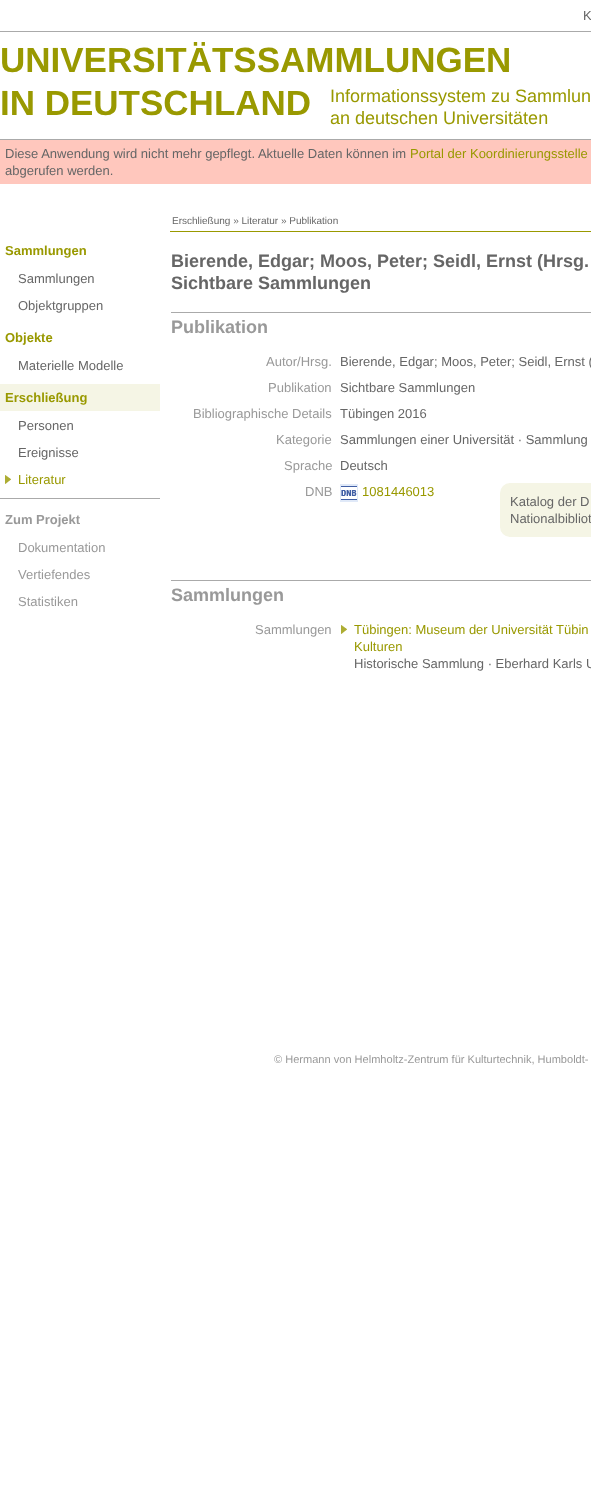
<svg xmlns="http://www.w3.org/2000/svg" width="591" height="1512">
<rect width="100%" height="100%" fill="#fff"/>
<text x="583" y="20" style="font-family:Liberation Sans;font-size:13px;fill:#666">K</text>
<rect y="31" width="591" height="1" fill="#aaa"/>
<rect y="139" width="591" height="1" fill="#aaa"/>
<text x="0" y="72" style="font-family:Liberation Sans;font-size:35px;font-weight:bold;fill:#990">UNIVERSITÄTSSAMMLUNGEN</text>
<text x="0" y="115" style="font-family:Liberation Sans;font-size:35px;font-weight:bold;fill:#990">IN DEUTSCHLAND</text>
<text x="330" y="102" style="font-family:Liberation Sans;font-size:18px;fill:#990">Informationssystem zu Sammlun</text>
<text x="330" y="124" style="font-family:Liberation Sans;font-size:18px;fill:#990">an deutschen Universitäten</text>
<rect y="140" width="591" height="44" fill="#ffc7bd"/>
<text x="5" y="158" style="font-family:Liberation Sans;font-size:13px;fill:#666">Diese Anwendung wird nicht mehr gepflegt. Aktuelle Daten können im</text>
<text x="410" y="158" style="font-family:Liberation Sans;font-size:13px;fill:#990">Portal der Koordinierungsstelle</text>
<text x="5" y="175" style="font-family:Liberation Sans;font-size:13px;fill:#666">abgerufen werden.</text>
<text x="172" y="224" style="font-family:Liberation Sans;font-size:10px;fill:#666">Erschließung » Literatur » Publikation</text>
<text x="5" y="255" style="font-family:Liberation Sans;font-size:13px;font-weight:bold;fill:#990">Sammlungen</text>
<text x="18" y="283" style="font-family:Liberation Sans;font-size:13px;fill:#666">Sammlungen</text>
<text x="18" y="310" style="font-family:Liberation Sans;font-size:13px;fill:#666">Objektgruppen</text>
<text x="5" y="342" style="font-family:Liberation Sans;font-size:13px;font-weight:bold;fill:#990">Objekte</text>
<text x="18" y="370" style="font-family:Liberation Sans;font-size:13px;fill:#666">Materielle Modelle</text>
<rect y="384" width="160" height="27" fill="#f5f5e5"/>
<text x="5" y="402" style="font-family:Liberation Sans;font-size:13px;font-weight:bold;fill:#990">Erschließung</text>
<text x="18" y="430" style="font-family:Liberation Sans;font-size:13px;fill:#666">Personen</text>
<text x="18" y="457" style="font-family:Liberation Sans;font-size:13px;fill:#666">Ereignisse</text>
<image x="5" y="475" width="6" height="9" href="media/1.png"/>
<text x="18" y="484" style="font-family:Liberation Sans;font-size:13px;fill:#990">Literatur</text>
<rect y="498" width="160" height="1" fill="#aaa"/>
<text x="5" y="524" style="font-family:Liberation Sans;font-size:13px;font-weight:bold;fill:#999">Zum Projekt</text>
<text x="18" y="552" style="font-family:Liberation Sans;font-size:13px;fill:#999">Dokumentation</text>
<text x="18" y="579" style="font-family:Liberation Sans;font-size:13px;fill:#999">Vertiefendes</text>
<text x="18" y="606" style="font-family:Liberation Sans;font-size:13px;fill:#999">Statistiken</text>
<rect x="170" y="231" width="421" height="1" fill="#990"/>
<text x="171" y="267" style="font-family:Liberation Sans;font-size:18px;font-weight:bold;fill:#666">Bierende, Edgar; Moos, Peter; Seidl, Ernst (Hrsg.</text>
<text x="171" y="289" style="font-family:Liberation Sans;font-size:18px;font-weight:bold;fill:#666">Sichtbare Sammlungen</text>
<rect x="171" y="312" width="420" height="1" fill="#aaa"/>
<text x="171" y="333" style="font-family:Liberation Sans;font-size:18px;font-weight:bold;fill:#999">Publikation</text>
<text x="266" y="366" style="font-family:Liberation Sans;font-size:13px;fill:#999">Autor/Hrsg.</text>
<text x="340" y="366" style="font-family:Liberation Sans;font-size:13px;fill:#666">Bierende, Edgar; Moos, Peter; Seidl, Ernst (</text>
<text x="268" y="392" style="font-family:Liberation Sans;font-size:13px;fill:#999">Publikation</text>
<text x="340" y="392" style="font-family:Liberation Sans;font-size:13px;fill:#666">Sichtbare Sammlungen</text>
<text x="193" y="418" style="font-family:Liberation Sans;font-size:13px;fill:#999">Bibliographische Details</text>
<text x="340" y="418" style="font-family:Liberation Sans;font-size:13px;fill:#666">Tübingen 2016</text>
<text x="276" y="444" style="font-family:Liberation Sans;font-size:13px;fill:#999">Kategorie</text>
<text x="340" y="444" style="font-family:Liberation Sans;font-size:13px;fill:#666">Sammlungen einer Universität · Sammlung</text>
<text x="284" y="470" style="font-family:Liberation Sans;font-size:13px;fill:#999">Sprache</text>
<text x="340" y="470" style="font-family:Liberation Sans;font-size:13px;fill:#666">Deutsch</text>
<text x="305" y="496" style="font-family:Liberation Sans;font-size:13px;fill:#999">DNB</text>
<image x="340" y="484" width="18" height="18" href="media/2.png"/>
<text x="362" y="496" style="font-family:Liberation Sans;font-size:13px;fill:#990">1081446013</text>
<rect x="500" y="483" width="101" height="54" rx="10" fill="#f5f5e5"/>
<text x="510" y="506" style="font-family:Liberation Sans;font-size:13px;fill:#666">Katalog der D</text>
<text x="510" y="523" style="font-family:Liberation Sans;font-size:13px;fill:#666">Nationalbibliot</text>
<rect x="171" y="580" width="420" height="1" fill="#aaa"/>
<text x="171" y="601" style="font-family:Liberation Sans;font-size:18px;font-weight:bold;fill:#999">Sammlungen</text>
<text x="255" y="634" style="font-family:Liberation Sans;font-size:13px;fill:#999">Sammlungen</text>
<image x="341" y="625" width="6" height="9" href="media/1.png"/>
<text x="354" y="634" style="font-family:Liberation Sans;font-size:13px;fill:#990">Tübingen: Museum der Universität Tübin</text>
<text x="354" y="651" style="font-family:Liberation Sans;font-size:13px;fill:#990">Kulturen</text>
<text x="354" y="668" style="font-family:Liberation Sans;font-size:13px;fill:#666">Historische Sammlung · Eberhard Karls U</text>
<text x="274" y="1063" style="font-family:Liberation Sans;font-size:11.05px;fill:#999">© Hermann von Helmholtz-Zentrum für Kulturtechnik, Humboldt-</text>
</svg>
